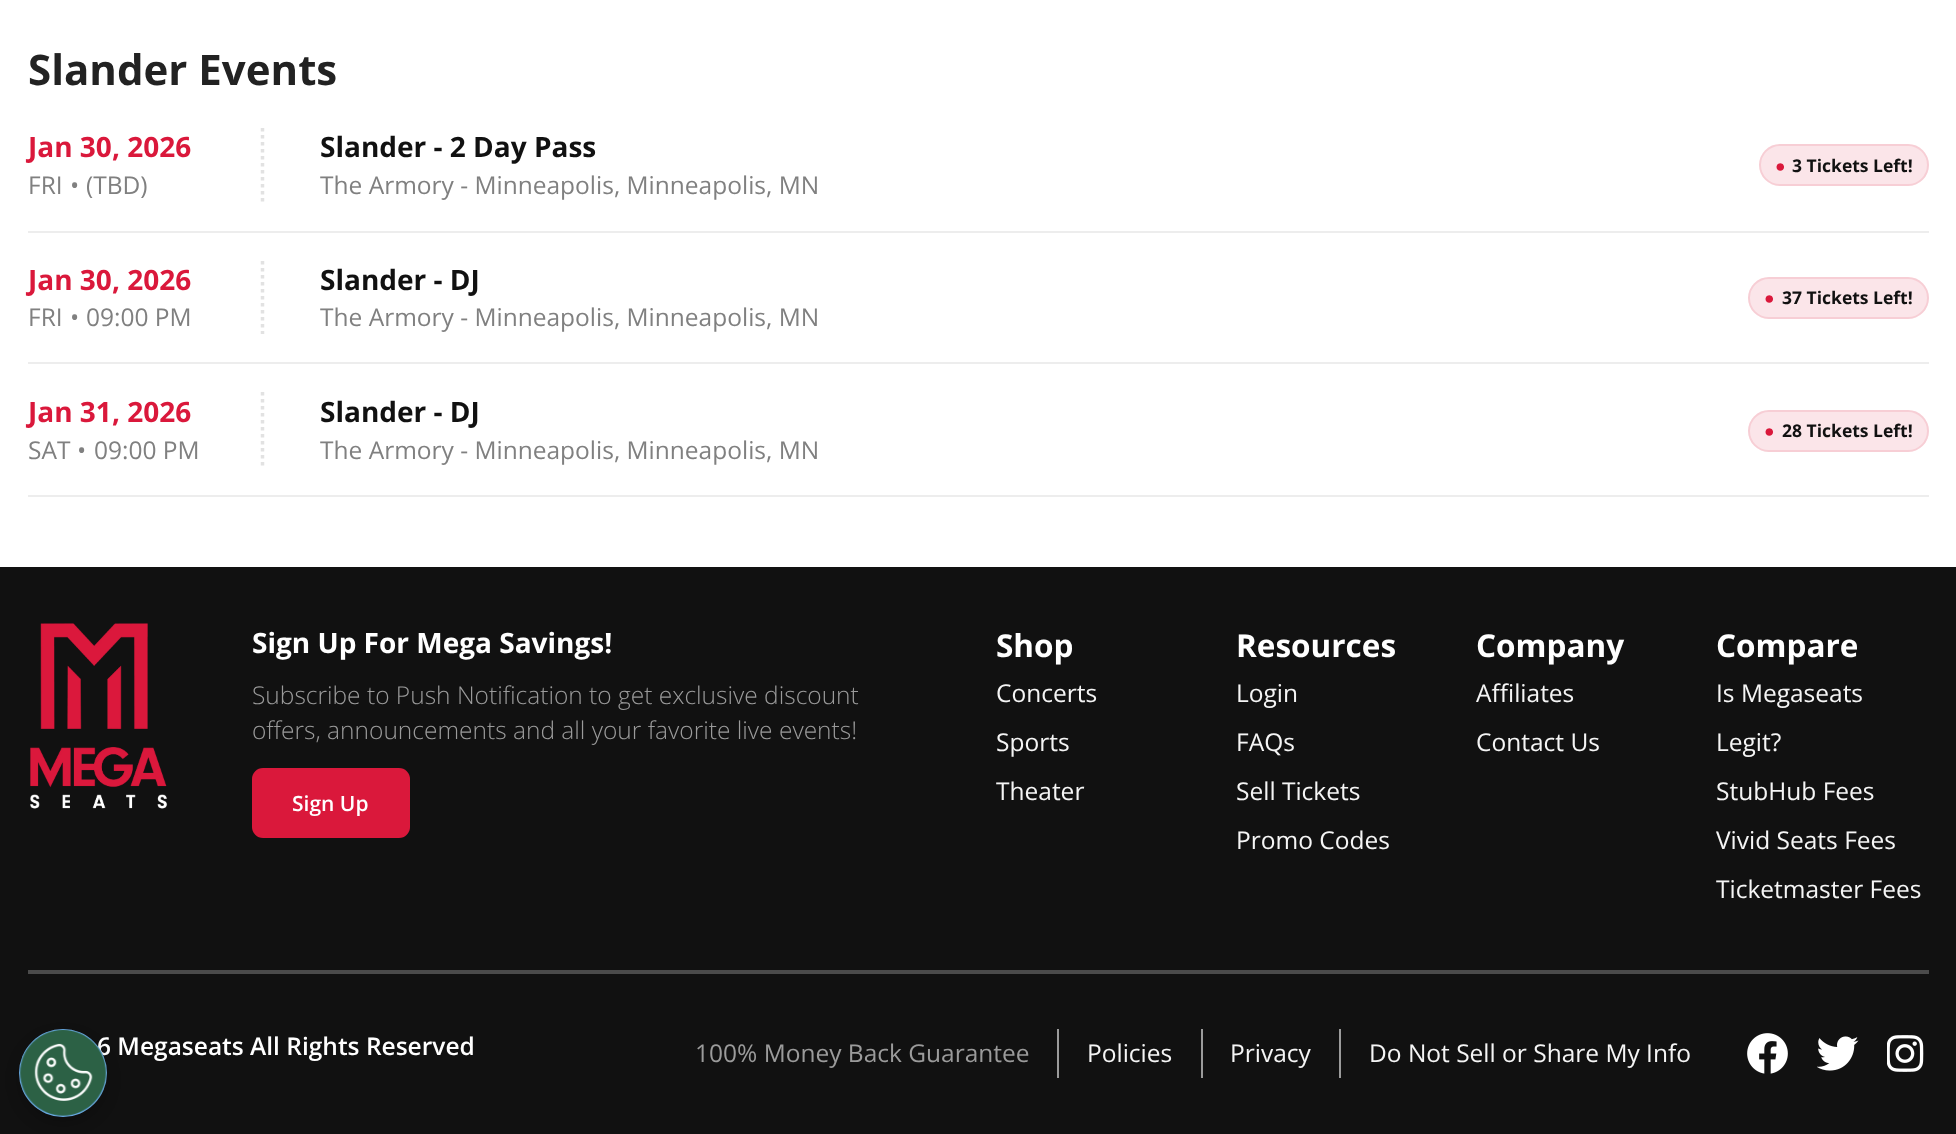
<svg xmlns="http://www.w3.org/2000/svg" width="1956" height="1134">
<rect width="100%" height="100%" fill="#fff"/>
<text x="28" y="85" style="font-family:Open Sans;font-size:42px;font-weight:bold;fill:#222">Slander Events</text>
<rect x="28" y="231" width="1901" height="2" fill="#ededed"/>
<path d="M262.5 128v75" fill="none" stroke="#e2e2e2" stroke-width="3.5" stroke-dasharray="3.5 3.5"/>
<text x="28" y="157" style="font-family:Open Sans;font-size:28px;font-weight:bold;fill:#da183b">Jan 30, 2026</text>
<text x="28" y="194" style="font-family:Open Sans;font-size:24.5px;fill:#808080">FRI</text>
<text x="70" y="194" style="font-family:Open Sans;font-size:24.5px;fill:#808080">•</text>
<text x="86" y="194" style="font-family:Open Sans;font-size:24.5px;fill:#808080">(TBD)</text>
<text x="320" y="157" style="font-family:Open Sans;font-size:28px;font-weight:bold;fill:#111">Slander - 2 Day Pass</text>
<text x="320" y="194" style="font-family:Open Sans;font-size:24.5px;fill:#808080">The Armory - Minneapolis, Minneapolis, MN</text>
<rect x="1759" y="144" width="170" height="42" rx="21" fill="#fbe5e9"/>
<rect x="1760" y="145" width="168" height="40" rx="20" fill="none" stroke="#da183b1c" stroke-width="2"/>
<text x="1775" y="172" style="font-family:Liberation Sans;font-size:17.5px;font-weight:bold;fill:#da183b">●</text>
<text x="1792" y="172" style="font-family:Open Sans;font-size:17.5px;font-weight:bold;fill:#111">3 Tickets Left!</text>
<rect x="28" y="362" width="1901" height="2" fill="#ededed"/>
<path d="M262.5 261v73" fill="none" stroke="#e2e2e2" stroke-width="3.5" stroke-dasharray="3.5 3.5"/>
<text x="28" y="290" style="font-family:Open Sans;font-size:28px;font-weight:bold;fill:#da183b">Jan 30, 2026</text>
<text x="28" y="326" style="font-family:Open Sans;font-size:24.5px;fill:#808080">FRI</text>
<text x="70" y="326" style="font-family:Open Sans;font-size:24.5px;fill:#808080">•</text>
<text x="86" y="326" style="font-family:Open Sans;font-size:24.5px;fill:#808080">09:00 PM</text>
<text x="320" y="290" style="font-family:Open Sans;font-size:28px;font-weight:bold;fill:#111">Slander - DJ</text>
<text x="320" y="326" style="font-family:Open Sans;font-size:24.5px;fill:#808080">The Armory - Minneapolis, Minneapolis, MN</text>
<rect x="1748" y="277" width="181" height="42" rx="21" fill="#fbe5e9"/>
<rect x="1749" y="278" width="179" height="40" rx="20" fill="none" stroke="#da183b1c" stroke-width="2"/>
<text x="1764" y="304" style="font-family:Liberation Sans;font-size:17.5px;font-weight:bold;fill:#da183b">●</text>
<text x="1782" y="304" style="font-family:Open Sans;font-size:17.5px;font-weight:bold;fill:#111">37 Tickets Left!</text>
<rect x="28" y="495" width="1901" height="2" fill="#ededed"/>
<path d="M262.5 392v75" fill="none" stroke="#e2e2e2" stroke-width="3.5" stroke-dasharray="3.5 3.5"/>
<text x="28" y="422" style="font-family:Open Sans;font-size:28px;font-weight:bold;fill:#da183b">Jan 31, 2026</text>
<text x="28" y="459" style="font-family:Open Sans;font-size:24.5px;fill:#808080">SAT</text>
<text x="77" y="459" style="font-family:Open Sans;font-size:24.5px;fill:#808080">•</text>
<text x="94" y="459" style="font-family:Open Sans;font-size:24.5px;fill:#808080">09:00 PM</text>
<text x="320" y="422" style="font-family:Open Sans;font-size:28px;font-weight:bold;fill:#111">Slander - DJ</text>
<text x="320" y="459" style="font-family:Open Sans;font-size:24.5px;fill:#808080">The Armory - Minneapolis, Minneapolis, MN</text>
<rect x="1748" y="410" width="181" height="42" rx="21" fill="#fbe5e9"/>
<rect x="1749" y="411" width="179" height="40" rx="20" fill="none" stroke="#da183b1c" stroke-width="2"/>
<text x="1764" y="437" style="font-family:Liberation Sans;font-size:17.5px;font-weight:bold;fill:#da183b">●</text>
<text x="1782" y="437" style="font-family:Open Sans;font-size:17.5px;font-weight:bold;fill:#111">28 Tickets Left!</text>
<rect y="567" width="1956" height="567" fill="#111"/>
<rect x="28" y="970" width="1901" height="4" fill="#4b4b4b"/>
<image x="30" y="623" width="138" height="186" href="media/1.png"/>
<text x="252" y="653" style="font-family:Open Sans;font-size:28px;font-weight:bold;fill:#fff">Sign Up For Mega Savings!</text>
<text x="252" y="704" style="font-family:Open Sans;font-size:24.5px;font-weight:300;fill:#9b9b9b">Subscribe to Push Notification to get exclusive discount</text>
<text x="252" y="739" style="font-family:Open Sans;font-size:24.5px;font-weight:300;fill:#9b9b9b">offers, announcements and all your favorite live events!</text>
<rect x="252" y="768" width="158" height="70" rx="11" fill="#da183b"/>
<text x="292" y="811" style="font-family:Open Sans;font-size:21px;font-weight:600;fill:#fff">Sign Up</text>
<text x="996" y="657" style="font-family:Open Sans;font-size:31.5px;font-weight:bold;fill:#fff">Shop</text>
<text x="996" y="702" style="font-family:Open Sans;font-size:24.5px;fill:#f5f5f5">Concerts</text>
<text x="996" y="751" style="font-family:Open Sans;font-size:24.5px;fill:#f5f5f5">Sports</text>
<text x="996" y="800" style="font-family:Open Sans;font-size:24.5px;fill:#f5f5f5">Theater</text>
<text x="1236" y="657" style="font-family:Open Sans;font-size:31.5px;font-weight:bold;fill:#fff">Resources</text>
<text x="1236" y="702" style="font-family:Open Sans;font-size:24.5px;fill:#f5f5f5">Login</text>
<text x="1236" y="751" style="font-family:Open Sans;font-size:24.5px;fill:#f5f5f5">FAQs</text>
<text x="1236" y="800" style="font-family:Open Sans;font-size:24.5px;fill:#f5f5f5">Sell Tickets</text>
<text x="1236" y="849" style="font-family:Open Sans;font-size:24.5px;fill:#f5f5f5">Promo Codes</text>
<text x="1476" y="657" style="font-family:Open Sans;font-size:31.5px;font-weight:bold;fill:#fff">Company</text>
<text x="1476" y="702" style="font-family:Open Sans;font-size:24.5px;fill:#f5f5f5">Affiliates</text>
<text x="1476" y="751" style="font-family:Open Sans;font-size:24.5px;fill:#f5f5f5">Contact Us</text>
<text x="1716" y="657" style="font-family:Open Sans;font-size:31.5px;font-weight:bold;fill:#fff">Compare</text>
<text x="1716" y="702" style="font-family:Open Sans;font-size:24.5px;fill:#f5f5f5">Is Megaseats</text>
<text x="1716" y="751" style="font-family:Open Sans;font-size:24.5px;fill:#f5f5f5">Legit?</text>
<text x="1716" y="800" style="font-family:Open Sans;font-size:24.5px;fill:#f5f5f5">StubHub Fees</text>
<text x="1716" y="849" style="font-family:Open Sans;font-size:24.5px;fill:#f5f5f5">Vivid Seats Fees</text>
<text x="1716" y="898" style="font-family:Open Sans;font-size:24.5px;fill:#f5f5f5">Ticketmaster Fees</text>
<text x="97" y="1055" style="font-family:Open Sans;font-size:24.5px;font-weight:600;fill:#fff">6 Megaseats All Rights Reserved</text>
<rect x="1057" y="1029" width="2" height="49" fill="#9b9b9b"/>
<text x="695" y="1062" style="font-family:Open Sans;font-size:24.5px;fill:#9b9b9b">100% Money Back Guarantee</text>
<rect x="1201" y="1029" width="2" height="49" fill="#9b9b9b"/>
<text x="1087" y="1062" style="font-family:Open Sans;font-size:24.5px;fill:#f5f5f5">Policies</text>
<rect x="1339" y="1029" width="2" height="49" fill="#9b9b9b"/>
<text x="1230" y="1062" style="font-family:Open Sans;font-size:24.5px;fill:#f5f5f5">Privacy</text>
<text x="1369" y="1062" style="font-family:Open Sans;font-size:24.5px;fill:#f5f5f5">Do Not Sell or Share My Info</text>
<image x="1747" y="1033" width="41" height="41" href="media/2.png"/>
<image x="1817" y="1036" width="42" height="35" href="media/3.png"/>
<image x="1887" y="1035" width="37" height="37" href="media/4.png"/>
<rect x="19" y="1036" width="88" height="88" rx="44" fill="#00000033" filter="blur(7px)"/>
<circle cx="63" cy="1073" r="44" fill="#6aaae4"/>
<image x="19" y="1029" width="88" height="87" href="media/5.png"/>
</svg>
